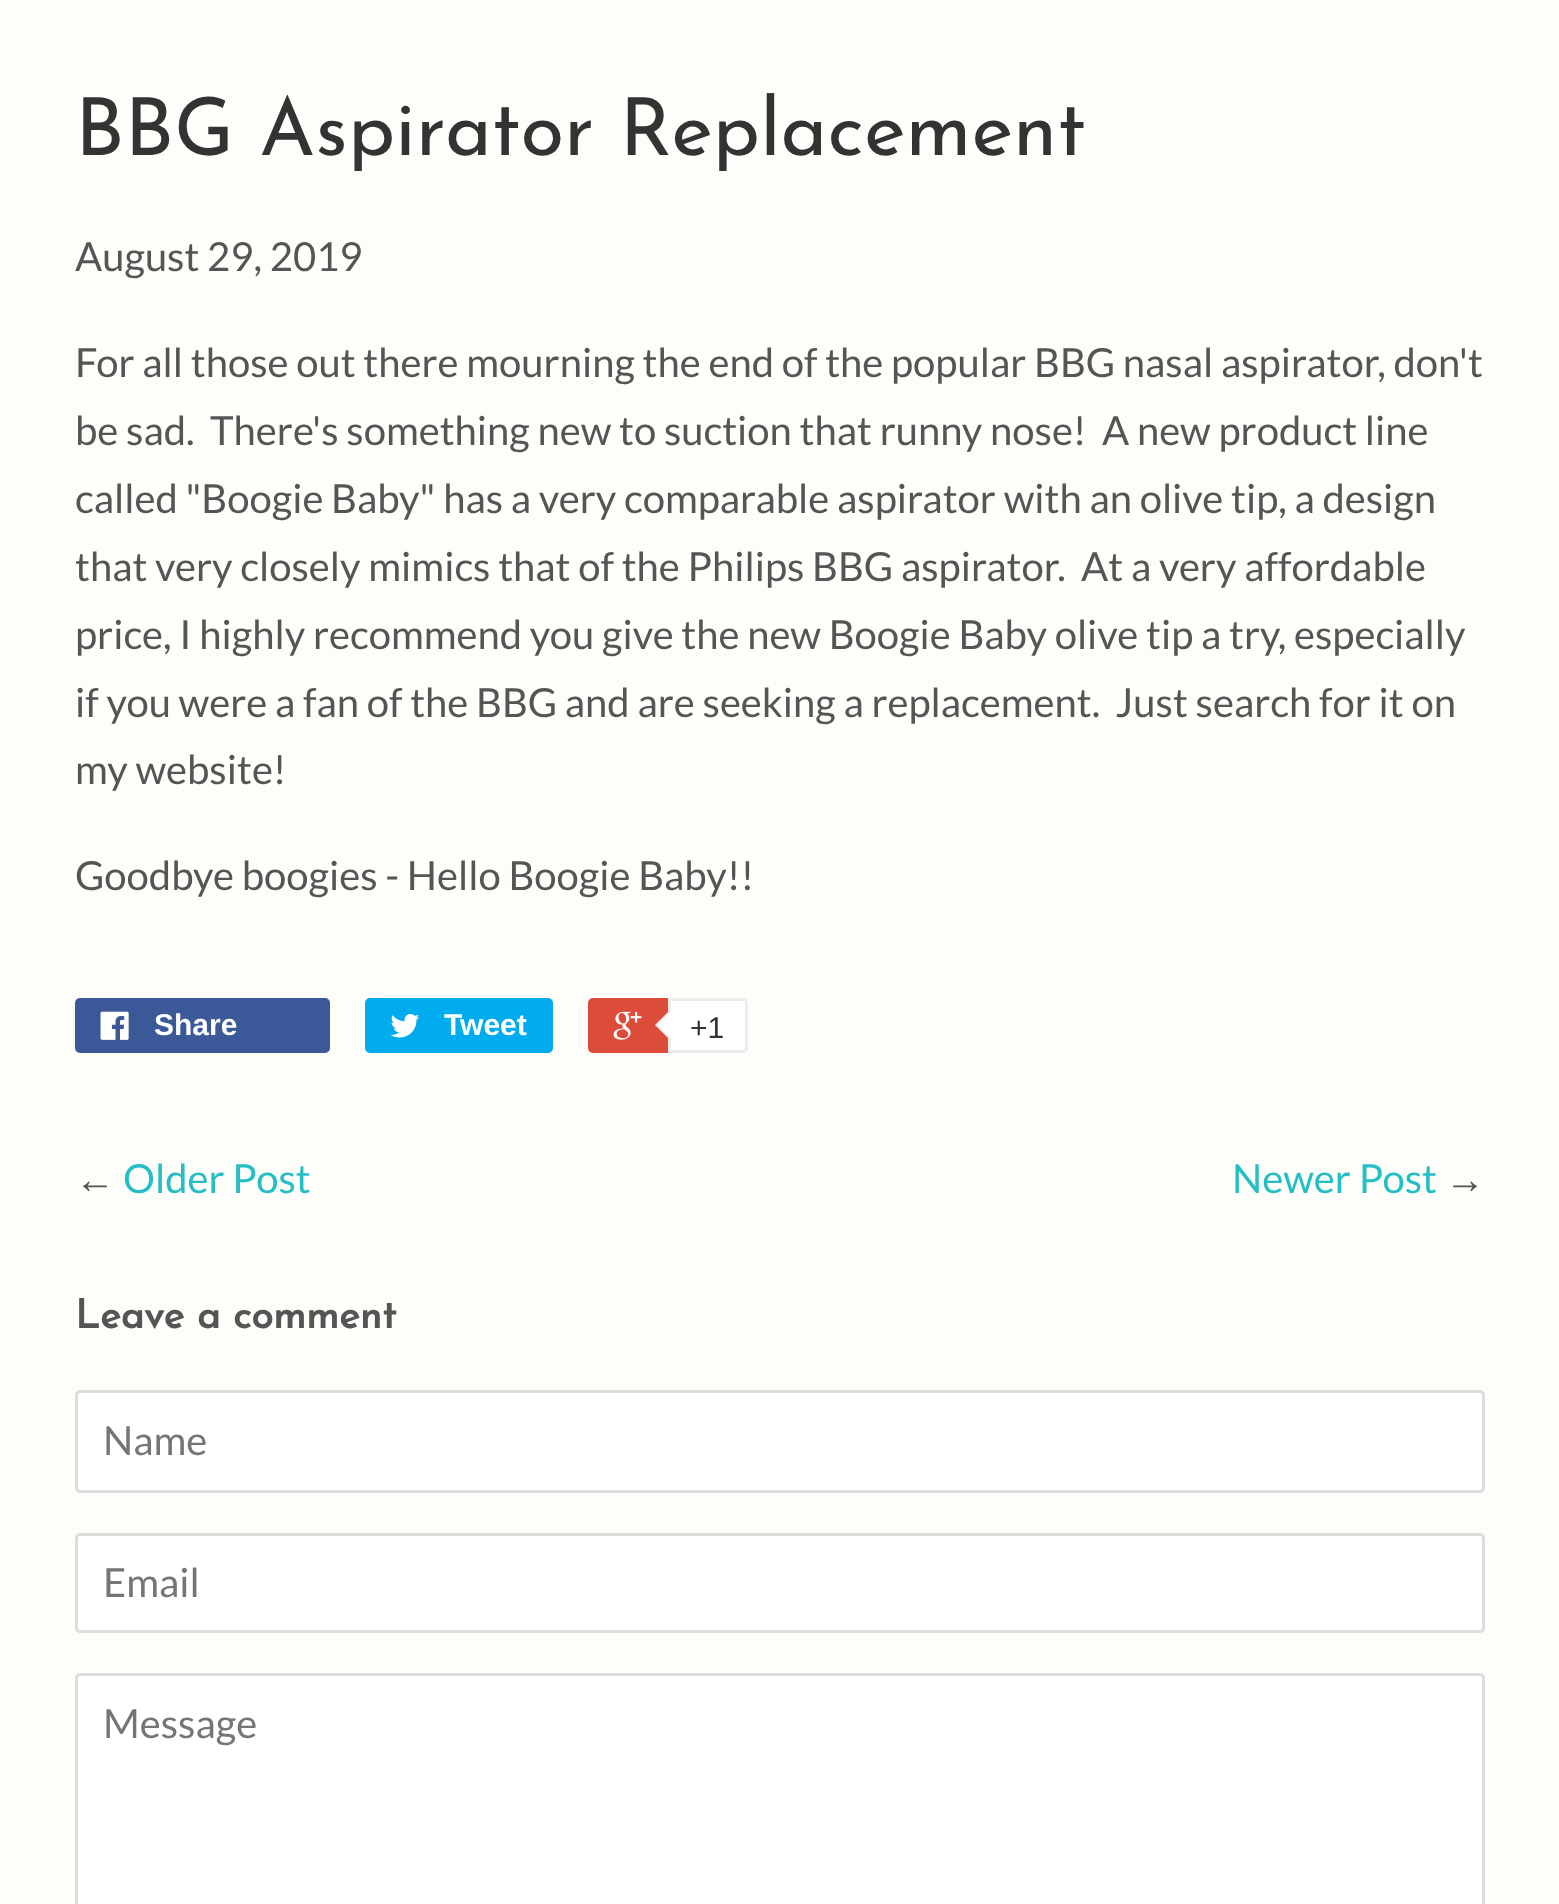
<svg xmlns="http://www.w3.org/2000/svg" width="1559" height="1904">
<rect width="100%" height="100%" fill="#fdfdf9"/>
<text x="75" y="155" style="font-family:Josefin Sans;font-size:80px;font-weight:100;fill:#333">BBG Aspirator Replacement</text>
<text x="75" y="271" style="font-family:Lato;font-size:40px;fill:#555">August 29, 2019</text>
<text x="75" y="377" style="font-family:Lato;font-size:40px;fill:#555">For all those out there mourning the end of the popular BBG nasal aspirator, don't</text>
<text x="75" y="445" style="font-family:Lato;font-size:40px;fill:#555" xml:space="preserve">be sad.  There's something new to suction that runny nose!  A new product line</text>
<text x="75" y="513" style="font-family:Lato;font-size:40px;fill:#555">called "Boogie Baby" has a very comparable aspirator with an olive tip, a design</text>
<text x="75" y="581" style="font-family:Lato;font-size:40px;fill:#555" xml:space="preserve">that very closely mimics that of the Philips BBG aspirator.  At a very affordable</text>
<text x="75" y="649" style="font-family:Lato;font-size:40px;fill:#555">price, I highly recommend you give the new Boogie Baby olive tip a try, especially</text>
<text x="75" y="717" style="font-family:Lato;font-size:40px;fill:#555" xml:space="preserve">if you were a fan of the BBG and are seeking a replacement.  Just search for it on</text>
<text x="75" y="784" style="font-family:Lato;font-size:40px;fill:#555">my website!</text>
<text x="75" y="890" style="font-family:Lato;font-size:40px;fill:#555">Goodbye boogies - Hello Boogie Baby!!</text>
<rect x="75" y="998" width="255" height="55" rx="5" fill="#3b5998"/>
<image x="100" y="1011" width="29" height="29" href="media/1.png"/>
<text x="154" y="1035" style="font-family:Liberation Sans;font-size:30px;font-weight:bold;fill:#fff">Share</text>
<rect x="365" y="998" width="188" height="55" rx="5" fill="#00aced"/>
<image x="390" y="1014" width="30" height="24" href="media/2.png"/>
<text x="444" y="1035" style="font-family:Liberation Sans;font-size:30px;font-weight:bold;fill:#fff">Tweet</text>
<rect x="588" y="998" width="155" height="55" rx="5" fill="#dd4b39"/>
<image x="613" y="1011" width="29" height="29" href="media/3.png"/>
<path d="M669.5 999.5h73.5c2 0 3.5 1.5 3.5 3.5v45c0 2-1.5 3.5-3.5 3.5h-73.5z" fill="#fff" stroke="#ececec" stroke-width="3"/>
<path d="M670 1010v30l-15-15z" fill="#ececec"/>
<path d="M672.5 1010v30l-15-15z" fill="#fff"/>
<text x="690" y="1038" style="font-family:Liberation Sans;font-size:30px;fill:#333">+1</text>
<text x="75" y="1193" style="font-family:Liberation Sans;font-size:40px;fill:#555">←</text>
<text x="123" y="1193" style="font-family:Lato;font-size:40px;fill:#24bec4">Older Post</text>
<text x="1232" y="1193" style="font-family:Lato;font-size:40px;fill:#24bec4">Newer Post</text>
<text x="1445" y="1193" style="font-family:Liberation Sans;font-size:40px;fill:#555">→</text>
<text x="75" y="1328" style="font-family:Josefin Sans;font-size:40px;font-weight:bold;fill:#555">Leave a comment</text>
<rect x="76.5" y="1391.5" width="1407" height="100" rx="3.5" fill="#fff" stroke="#ddd" stroke-width="3"/>
<text x="103" y="1455" style="font-family:Lato;font-size:40px;fill:#757575">Name</text>
<rect x="76.5" y="1534.5" width="1407" height="97" rx="3.5" fill="#fff" stroke="#ddd" stroke-width="3"/>
<text x="103" y="1597" style="font-family:Lato;font-size:40px;fill:#757575">Email</text>
<rect x="76.5" y="1674.5" width="1407" height="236" rx="3.5" fill="#fff" stroke="#ddd" stroke-width="3"/>
<text x="103" y="1738" style="font-family:Lato;font-size:40px;fill:#757575">Message</text>
</svg>
